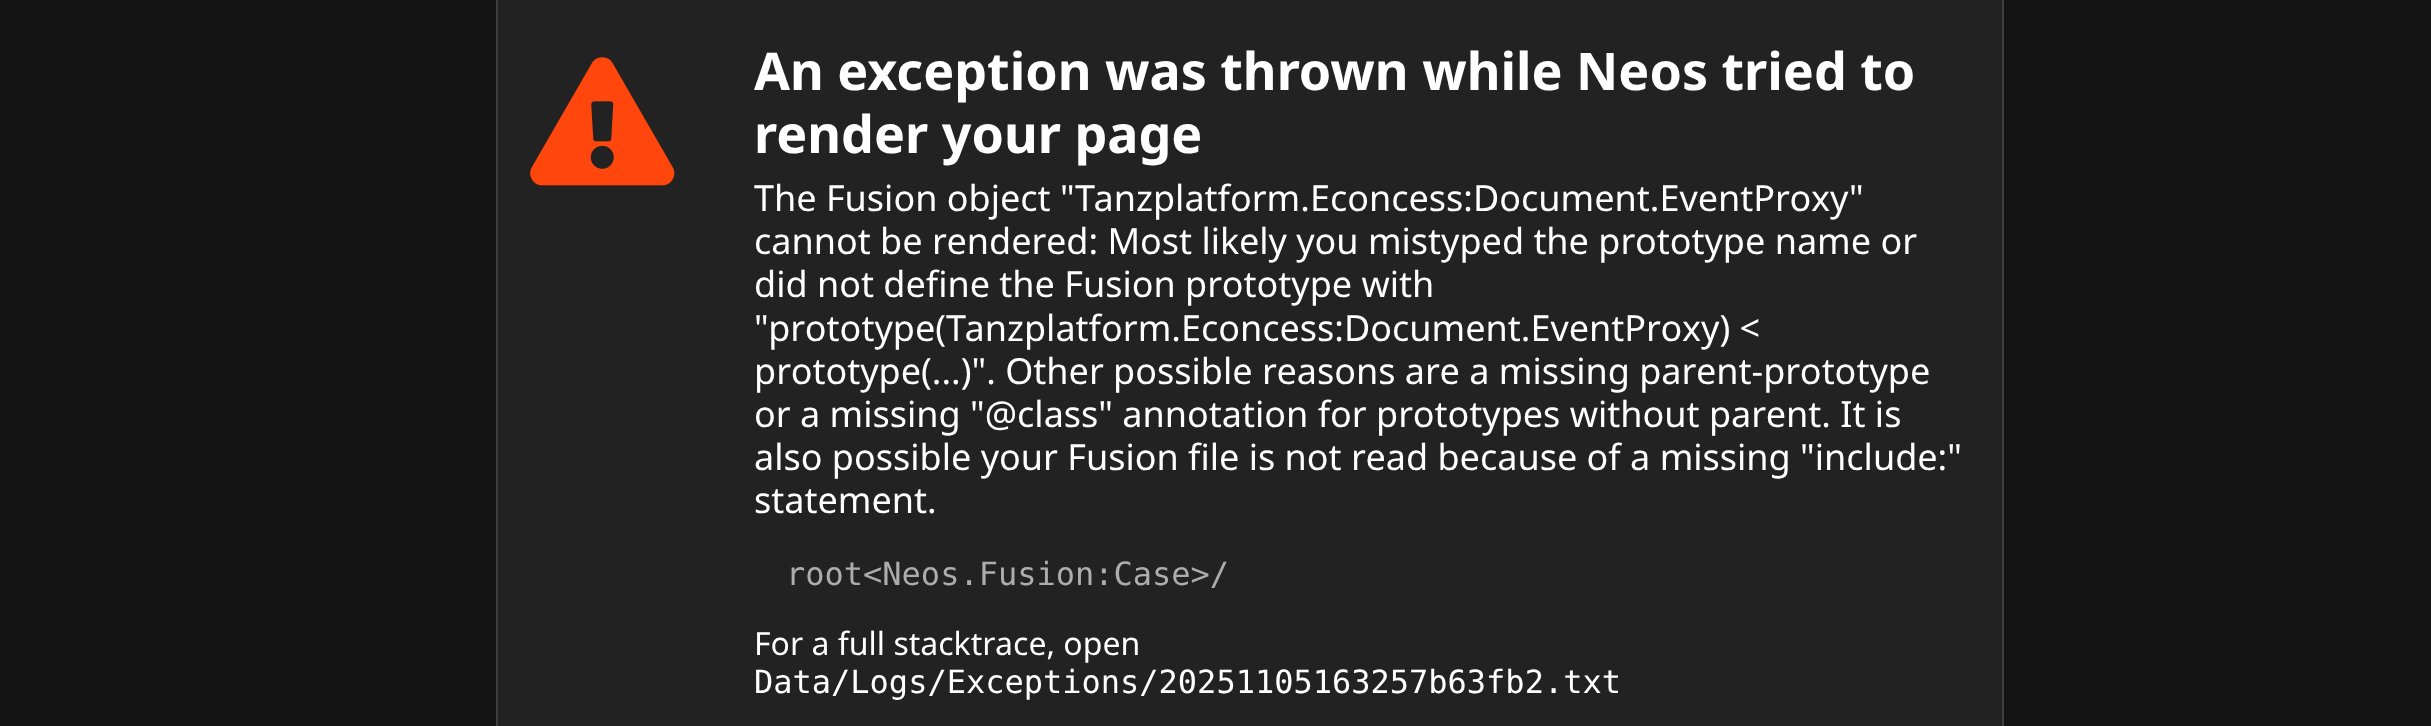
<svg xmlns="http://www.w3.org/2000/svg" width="2431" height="726">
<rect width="100%" height="100%" fill="#141414"/>
<rect x="497" y="-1" width="1506" height="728" fill="#222" stroke="#3f3f3f" stroke-width="2"/>
<image x="530" y="57" width="145" height="129" href="media/1.png"/>
<text x="754" y="90" style="font-family:Noto Sans;font-size:52px;font-weight:bold;fill:#fff">An exception was thrown while Neos tried to</text>
<text x="754" y="153" style="font-family:Noto Sans;font-size:52px;font-weight:bold;fill:#fff">render your page</text>
<text x="754" y="211" style="font-family:Noto Sans;font-size:36px;fill:#fff">The Fusion object "Tanzplatform.Econcess:Document.EventProxy"</text>
<text x="754" y="254" style="font-family:Noto Sans;font-size:36px;fill:#fff">cannot be rendered: Most likely you mistyped the prototype name or</text>
<text x="754" y="297" style="font-family:Noto Sans;font-size:36px;fill:#fff">did not define the Fusion prototype with</text>
<text x="754" y="341" style="font-family:Noto Sans;font-size:36px;fill:#fff">"prototype(Tanzplatform.Econcess:Document.EventProxy) &lt;</text>
<text x="754" y="384" style="font-family:Noto Sans;font-size:36px;fill:#fff">prototype(...)". Other possible reasons are a missing parent-prototype</text>
<text x="754" y="427" style="font-family:Noto Sans;font-size:36px;fill:#fff">or a missing "@class" annotation for prototypes without parent. It is</text>
<text x="754" y="470" style="font-family:Noto Sans;font-size:36px;fill:#fff">also possible your Fusion file is not read because of a missing "include:"</text>
<text x="754" y="513" style="font-family:Noto Sans;font-size:36px;fill:#fff">statement.</text>
<text x="786" y="585" style="font-family:DejaVu Sans Mono;font-size:32px;fill:#adadad">root&lt;Neos.Fusion:Case&gt;/</text>
<text x="754" y="655" style="font-family:Noto Sans;font-size:32px;fill:#fff">For a full stacktrace, open</text>
<text x="754" y="693" style="font-family:DejaVu Sans Mono;font-size:32px;fill:#fff">Data/Logs/Exceptions/20251105163257b63fb2.txt</text>
</svg>
